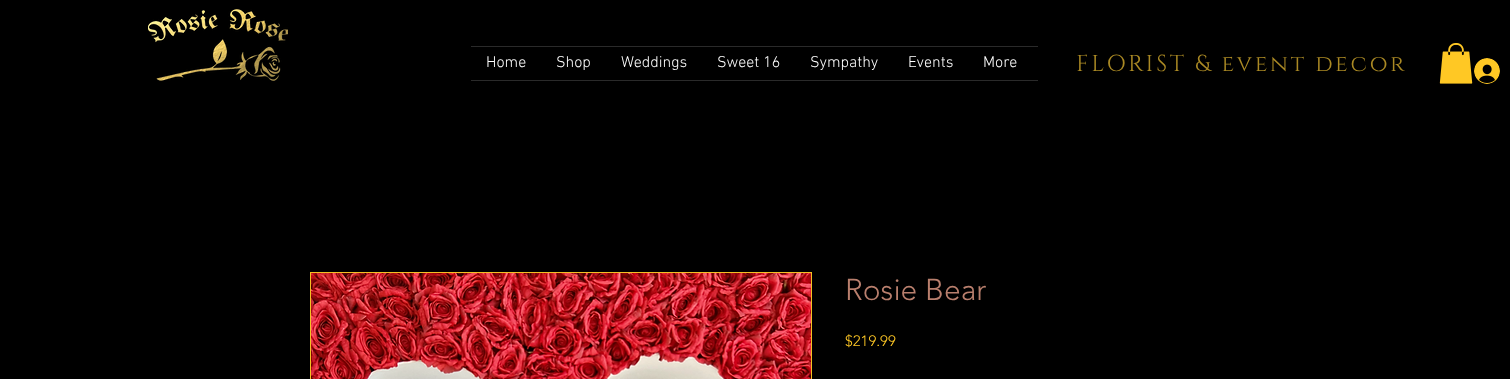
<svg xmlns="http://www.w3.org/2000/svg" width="1510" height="379">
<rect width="100%" height="100%" fill="#000"/>
<image x="148" y="9" width="140" height="72" href="media/1.png"/>
<rect x="471" y="46" width="567" height="1" fill="#2a2a2a"/>
<rect x="471" y="80" width="567" height="1" fill="#2a2a2a"/>
<text x="486" y="67" style="font-family:'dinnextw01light';font-size:16px;font-weight:300;fill:#fff">Home</text>
<text x="556" y="67" style="font-family:'dinnextw01light';font-size:16px;font-weight:300;fill:#fff">Shop</text>
<text x="621" y="67" style="font-family:'dinnextw01light';font-size:16px;font-weight:300;fill:#fff">Weddings</text>
<text x="717" y="67" style="font-family:'dinnextw01light';font-size:16px;font-weight:300;fill:#fff">Sweet 16</text>
<text x="810" y="67" style="font-family:'dinnextw01light';font-size:16px;font-weight:300;fill:#fff">Sympathy</text>
<text x="908" y="67" style="font-family:'dinnextw01light';font-size:16px;font-weight:300;fill:#fff">Events</text>
<text x="983" y="67" style="font-family:'dinnextw01light';font-size:16px;font-weight:300;fill:#fff">More</text>
<text x="1076" y="71" style="font-family:Cinzel;font-size:23px;letter-spacing:2.75px;fill:#aa8924">FLORIST &amp; event decor</text>
<image x="1439" y="43" width="34" height="41" href="media/2.png"/>
<image x="1474" y="58" width="26" height="26" href="media/3.png"/>
<rect x="310.5" y="272.5" width="501" height="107" fill="none" stroke="#f5c023"/>
<image x="311" y="273" width="500" height="106" href="media/4.png"/>
<text x="845" y="300" style="font-family:'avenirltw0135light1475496';font-size:30px;font-weight:300;fill:#b97f6d">Rosie Bear</text>
<text x="845" y="346" style="font-family:'avenirltw0135light1475496';font-size:15px;font-weight:300;fill:#ffc824">$219.99</text>
</svg>
